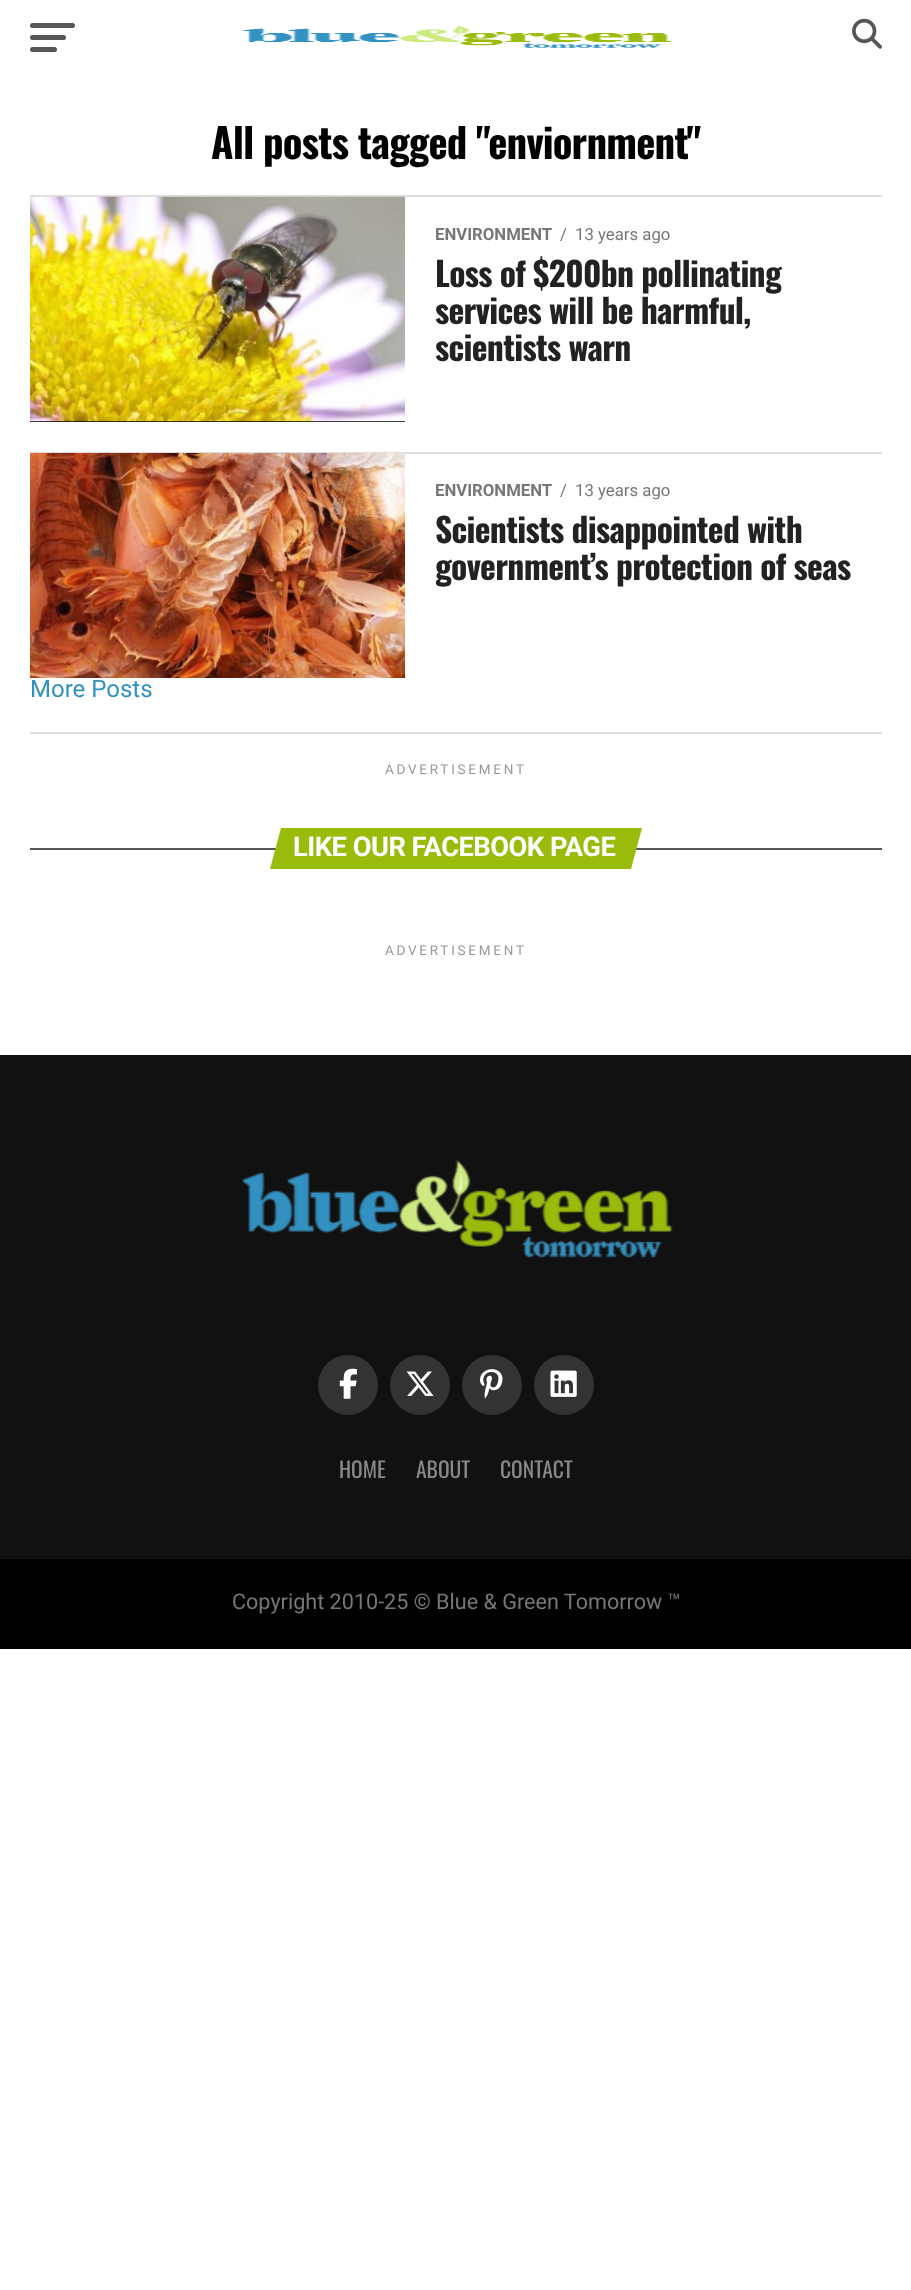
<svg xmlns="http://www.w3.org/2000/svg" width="911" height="2290">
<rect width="100%" height="100%" fill="#fff"/>
<rect x="30" y="23" width="45" height="5" rx="2.5" fill="#555"/>
<rect x="30" y="35" width="36" height="5" rx="2.5" fill="#555"/>
<rect x="30" y="47" width="27" height="5" rx="2.5" fill="#555"/>
<image x="242" y="25" width="431" height="23" href="media/1.png"/>
<image x="852" y="18" width="30" height="31" href="media/2.png"/>
<text x="211" y="159" style="font-family:Oswald;font-size:40.75px;font-weight:bold;letter-spacing:-0.8px;fill:#000">All posts tagged "enviornment"</text>
<rect x="30" y="195" width="852" height="2" fill="#ddd"/>
<rect x="30" y="421" width="375" height="1" fill="#000"/>
<image x="30" y="196" width="375" height="226" href="media/3.png"/>
<text x="435" y="240" style="font-family:Roboto;font-size:16.75px;font-weight:bold;fill:#777">ENVIRONMENT</text>
<text x="560" y="240" style="font-family:Roboto;font-size:16.75px;fill:#777">/</text>
<text x="575" y="240" style="font-family:Roboto;font-size:16.75px;fill:#777">13 years ago</text>
<text x="435" y="287" style="font-family:Oswald;font-size:33.6px;font-weight:bold;letter-spacing:-0.7px;fill:#222">Loss of $200bn pollinating</text>
<text x="435" y="324" style="font-family:Oswald;font-size:33.6px;font-weight:bold;letter-spacing:-0.7px;fill:#222">services will be harmful,</text>
<text x="435" y="361" style="font-family:Oswald;font-size:33.6px;font-weight:bold;letter-spacing:-0.7px;fill:#222">scientists warn</text>
<rect x="30" y="452" width="852" height="2" fill="#ddd"/>
<image x="30" y="453" width="375" height="225" href="media/4.png"/>
<text x="435" y="496" style="font-family:Roboto;font-size:16.75px;font-weight:bold;fill:#777">ENVIRONMENT</text>
<text x="560" y="496" style="font-family:Roboto;font-size:16.75px;fill:#777">/</text>
<text x="575" y="496" style="font-family:Roboto;font-size:16.75px;fill:#777">13 years ago</text>
<text x="435" y="543" style="font-family:Oswald;font-size:33.6px;font-weight:bold;letter-spacing:-0.7px;fill:#222">Scientists disappointed with</text>
<text x="435" y="580" style="font-family:Oswald;font-size:33.6px;font-weight:bold;letter-spacing:-0.7px;fill:#222">government’s protection of seas</text>
<text x="30" y="697" style="font-family:Roboto;font-size:24px;fill:#3291bf">More Posts</text>
<rect x="30" y="732" width="852" height="2" fill="#ddd"/>
<text x="385" y="774" style="font-family:Roboto;font-size:13.5px;letter-spacing:2.75px;fill:#999">ADVERTISEMENT</text>
<rect x="30" y="848" width="852" height="2" fill="#555"/>
<path d="M281 828h361l-11 41h-361z" fill="#99bb0b"/>
<text x="293" y="856" style="font-family:Roboto;font-size:27.25px;font-weight:bold;letter-spacing:-0.5px;fill:#fff">LIKE OUR FACEBOOK PAGE</text>
<text x="385" y="955" style="font-family:Roboto;font-size:13.5px;letter-spacing:2.75px;fill:#999">ADVERTISEMENT</text>
<rect y="1055" width="911" height="504" fill="#111"/>
<image x="242" y="1159" width="431" height="99" href="media/5.png"/>
<circle cx="348" cy="1385" r="30" fill="#333"/>
<image x="339" y="1368" width="18" height="31" href="media/6.png"/>
<circle cx="420" cy="1385" r="30" fill="#333"/>
<image x="406" y="1371" width="28" height="25" href="media/7.png"/>
<circle cx="492" cy="1385" r="30" fill="#333"/>
<image x="480" y="1369" width="23" height="30" href="media/8.png"/>
<circle cx="564" cy="1385" r="30" fill="#333"/>
<image x="550" y="1370" width="27" height="27" href="media/9.png"/>
<text x="339" y="1478" style="font-family:Oswald;font-size:21.6px;fill:#888">HOME</text>
<text x="416" y="1478" style="font-family:Oswald;font-size:21.6px;fill:#888">ABOUT</text>
<text x="500" y="1478" style="font-family:Oswald;font-size:21.6px;fill:#888">CONTACT</text>
<rect y="1559" width="911" height="90" fill="#000"/>
<text x="232" y="1609" style="font-family:Roboto;font-size:21.6px;fill:#777">Copyright 2010-25 © Blue &amp; Green Tomorrow ™</text>
</svg>
